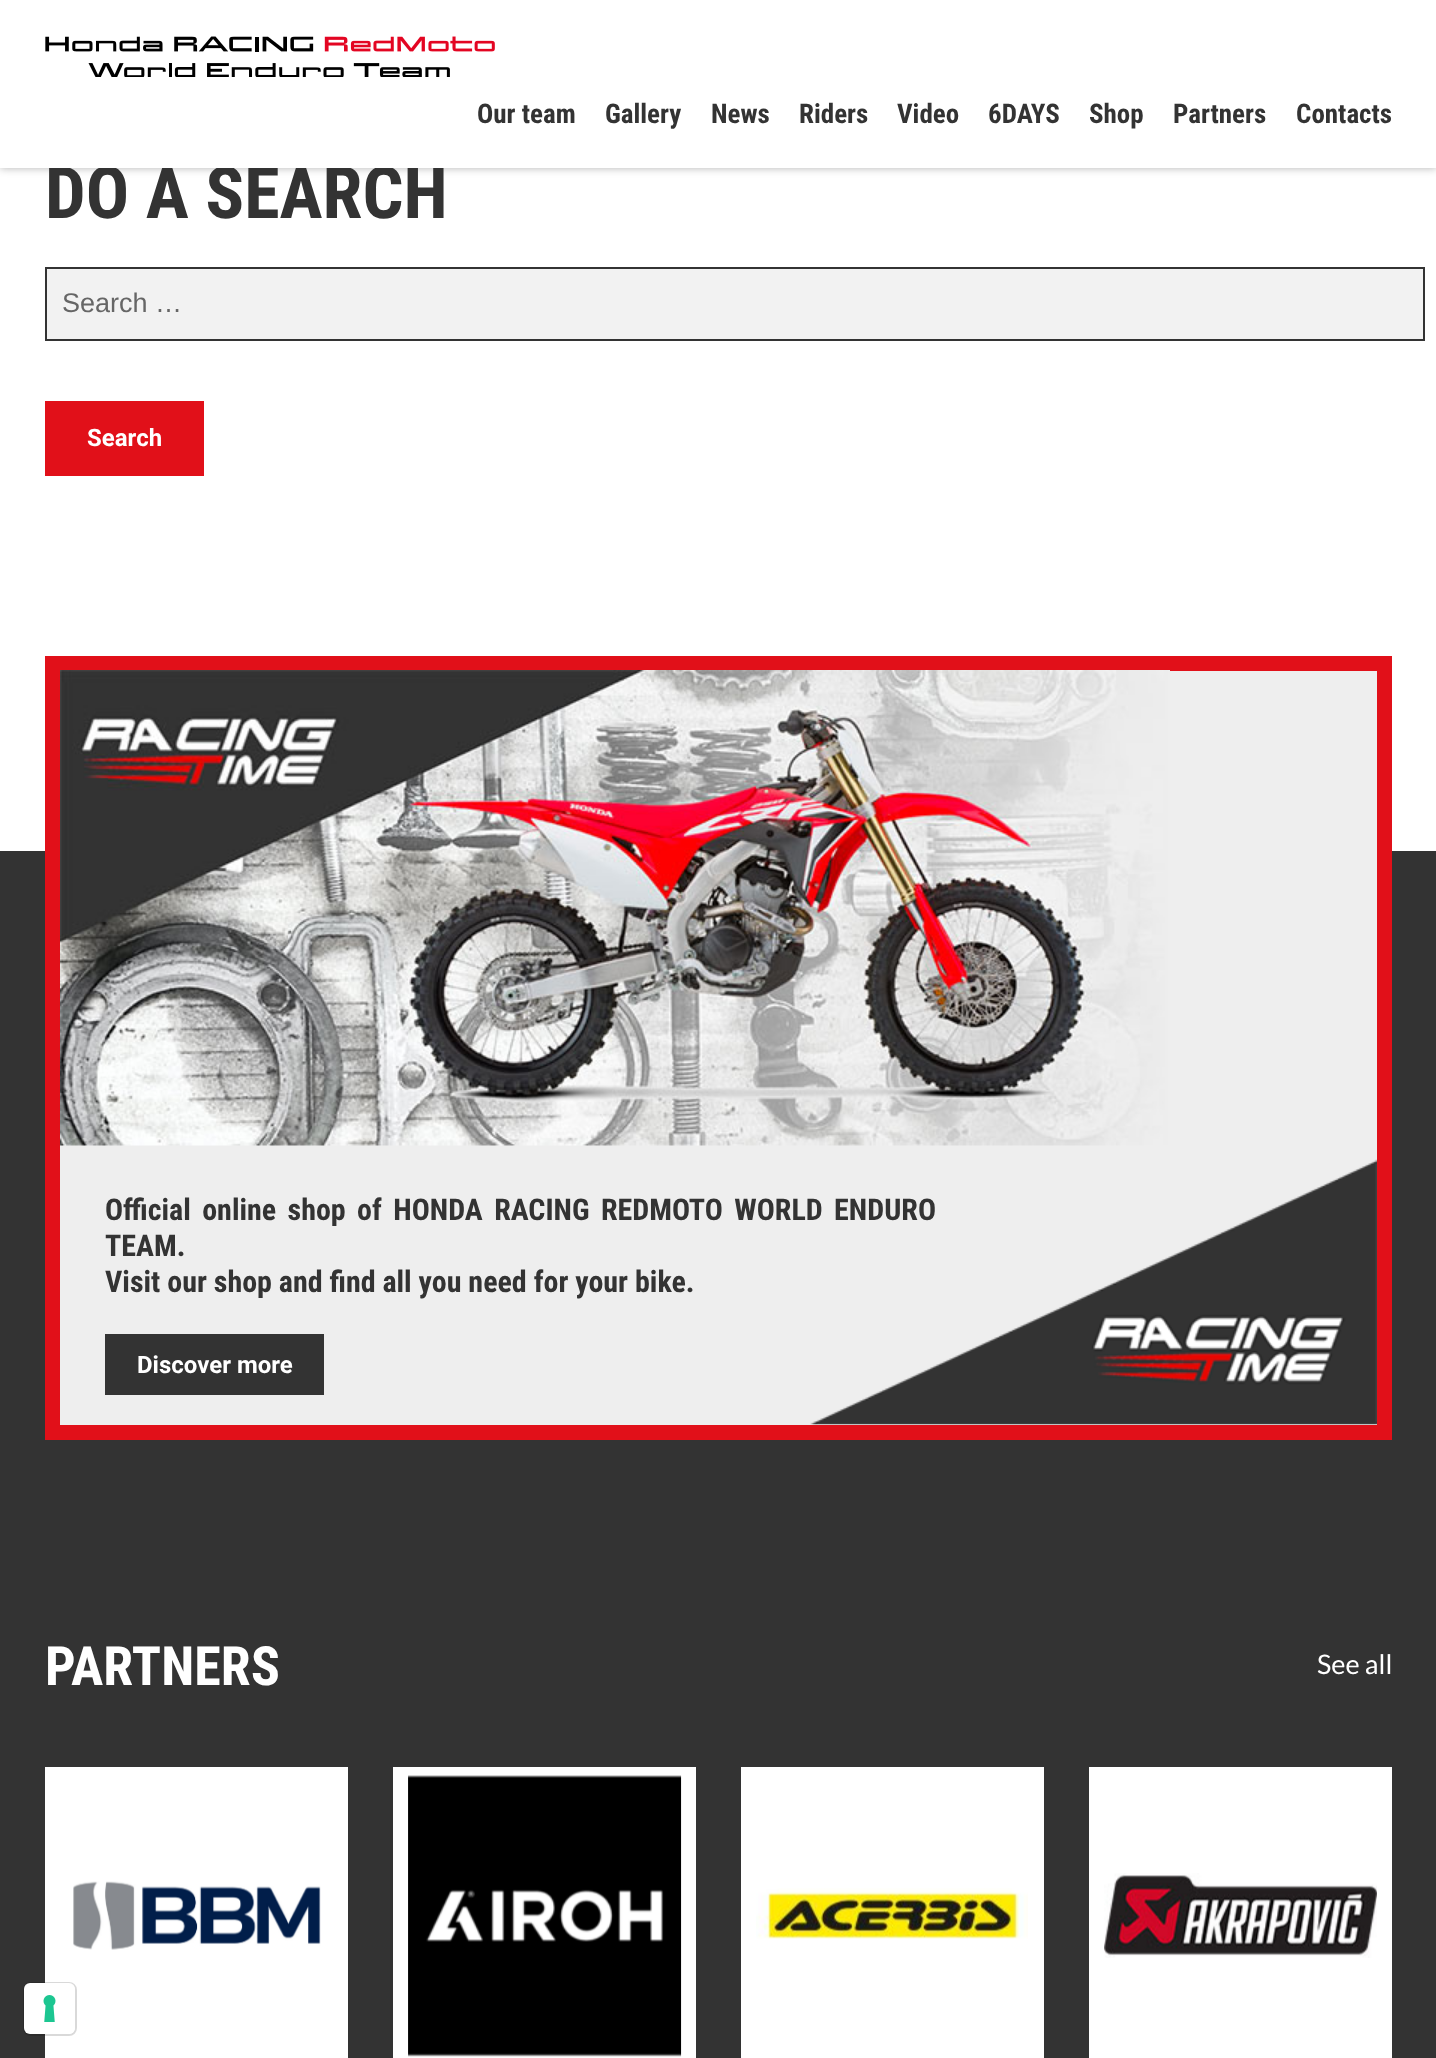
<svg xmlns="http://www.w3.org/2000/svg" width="1436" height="2058">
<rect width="100%" height="100%" fill="#fff"/>
<rect width="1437" height="168" fill="#0000004d" filter="blur(4px)"/>
<text x="45" y="218" style="font-family:Roboto Condensed;font-size:72px;font-weight:bold;fill:#333">DO A SEARCH</text>
<rect width="1436" height="168" fill="#fff"/>
<image x="45" y="36" width="450" height="41" href="media/1.png"/>
<text x="477" y="123" style="font-family:Roboto Condensed;font-size:27px;font-weight:bold;fill:#333">Our team</text>
<text x="605" y="123" style="font-family:Roboto Condensed;font-size:27px;font-weight:bold;fill:#333">Gallery</text>
<text x="711" y="123" style="font-family:Roboto Condensed;font-size:27px;font-weight:bold;fill:#333">News</text>
<text x="799" y="123" style="font-family:Roboto Condensed;font-size:27px;font-weight:bold;fill:#333">Riders</text>
<text x="897" y="123" style="font-family:Roboto Condensed;font-size:27px;font-weight:bold;fill:#333">Video</text>
<text x="988" y="123" style="font-family:Roboto Condensed;font-size:27px;font-weight:bold;fill:#333">6DAYS</text>
<text x="1089" y="123" style="font-family:Roboto Condensed;font-size:27px;font-weight:bold;fill:#333">Shop</text>
<text x="1173" y="123" style="font-family:Roboto Condensed;font-size:27px;font-weight:bold;fill:#333">Partners</text>
<text x="1296" y="123" style="font-family:Roboto Condensed;font-size:27px;font-weight:bold;fill:#333">Contacts</text>
<rect x="46" y="268" width="1378" height="72" fill="#f2f2f2" stroke="#333" stroke-width="2"/>
<text x="62" y="312" style="font-family:Liberation Sans;font-size:27px;fill:#666">Search …</text>
<rect x="45" y="401" width="159" height="75" fill="#e11019"/>
<text x="87" y="446" style="font-family:Roboto;font-size:24px;font-weight:bold;fill:#fff">Search</text>
<rect y="851" width="1436" height="1207" fill="#333"/>
<rect x="52.5" y="663.5" width="1332" height="769" fill="#eee" stroke="#e11019" stroke-width="15"/>
<image x="60" y="670" width="1110" height="476" href="media/2.png"/>
<image x="810" y="1159" width="567" height="266" href="media/3.png"/>
<text x="105" y="1220" word-spacing="4.5" style="font-family:Roboto Condensed;font-size:30px;font-weight:bold;fill:#333">Official online shop of HONDA RACING REDMOTO WORLD ENDURO</text>
<text x="105" y="1256" style="font-family:Roboto Condensed;font-size:30px;font-weight:bold;fill:#333">TEAM.</text>
<text x="105" y="1292" style="font-family:Roboto Condensed;font-size:30px;font-weight:bold;fill:#333">Visit our shop and find all you need for your bike.</text>
<rect x="105" y="1334" width="219" height="61" fill="#333"/>
<text x="137" y="1373" style="font-family:Roboto;font-size:24px;font-weight:bold;fill:#fff">Discover more</text>
<text x="45" y="1685" style="font-family:Roboto Condensed;font-size:54px;font-weight:bold;fill:#fff">PARTNERS</text>
<text x="1317" y="1674" style="font-family:Lato;font-size:27px;fill:#fff">See all</text>
<rect x="45" y="1767" width="303" height="291" fill="#fff"/>
<image x="73" y="1881" width="248" height="69" href="media/4.png"/>
<rect x="393" y="1767" width="303" height="291" fill="#fff"/>
<image x="408" y="1775" width="274" height="282" href="media/5.png"/>
<rect x="741" y="1767" width="303" height="291" fill="#fff"/>
<image x="756" y="1888" width="272" height="51" href="media/6.png"/>
<rect x="1089" y="1767" width="303" height="291" fill="#fff"/>
<image x="1104" y="1873" width="273" height="85" href="media/7.png"/>
<rect x="24" y="1983" width="52" height="52" rx="7" fill="none" stroke="#00000026" stroke-width="2"/>
<rect x="24" y="1983" width="51" height="51" rx="6" fill="#fff"/>
<image x="43" y="1995" width="13" height="27" href="media/8.png"/>
</svg>
